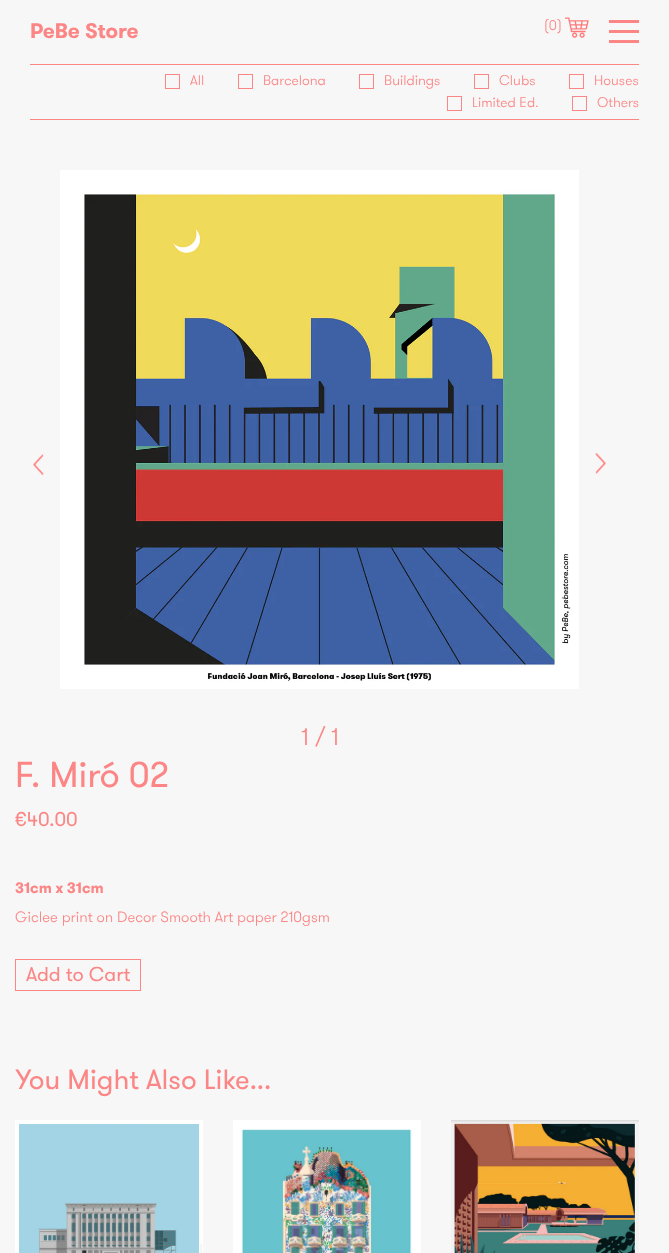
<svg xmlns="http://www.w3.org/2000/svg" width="669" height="1253">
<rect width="100%" height="100%" fill="#f7f7f7"/>
<rect x="30" y="64" width="609" height="1" fill="#fc8686"/>
<text x="30" y="38" style="font-family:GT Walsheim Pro;font-size:21px;font-weight:bold;fill:#fc8686">PeBe Store</text>
<rect x="609" y="20" width="30" height="3" fill="#fc8686"/>
<rect x="609" y="30" width="30" height="3" fill="#fc8686"/>
<rect x="609" y="40" width="30" height="3" fill="#fc8686"/>
<text x="544" y="30" style="font-family:GT Walsheim Pro;font-size:14px;font-weight:300;fill:#fc8686">(0)</text>
<image x="565" y="17" width="24" height="21" href="media/1.png"/>
<rect x="30" y="119" width="609" height="1" fill="#fc8686"/>
<rect x="165.5" y="74.5" width="14" height="14" fill="none" stroke="#fc8686"/>
<text x="190" y="85" style="font-family:GT Walsheim Pro;font-size:14px;font-weight:300;fill:#fc8686">All</text>
<rect x="238.5" y="74.5" width="14" height="14" fill="none" stroke="#fc8686"/>
<text x="263" y="85" style="font-family:GT Walsheim Pro;font-size:14px;font-weight:300;fill:#fc8686">Barcelona</text>
<rect x="359.5" y="74.5" width="14" height="14" fill="none" stroke="#fc8686"/>
<text x="384" y="85" style="font-family:GT Walsheim Pro;font-size:14px;font-weight:300;fill:#fc8686">Buildings</text>
<rect x="474.5" y="74.5" width="14" height="14" fill="none" stroke="#fc8686"/>
<text x="499" y="85" style="font-family:GT Walsheim Pro;font-size:14px;font-weight:300;fill:#fc8686">Clubs</text>
<rect x="569.5" y="74.5" width="14" height="14" fill="none" stroke="#fc8686"/>
<text x="594" y="85" style="font-family:GT Walsheim Pro;font-size:14px;font-weight:300;fill:#fc8686">Houses</text>
<rect x="447.5" y="96.5" width="14" height="14" fill="none" stroke="#fc8686"/>
<text x="472" y="107" style="font-family:GT Walsheim Pro;font-size:14px;font-weight:300;fill:#fc8686">Limited Ed.</text>
<rect x="572.5" y="96.5" width="14" height="14" fill="none" stroke="#fc8686"/>
<text x="597" y="107" style="font-family:GT Walsheim Pro;font-size:14px;font-weight:300;fill:#fc8686">Others</text>
<image x="33" y="454" width="11" height="22" href="media/2.png"/>
<image x="60" y="170" width="519" height="519" href="media/3.png"/>
<image x="595" y="452" width="11" height="22" href="media/4.png"/>
<text x="301" y="745" style="font-family:GT Walsheim Pro;font-size:24px;font-weight:300;fill:#fc8686">1 / 1</text>
<text x="15" y="787" style="font-family:GT Walsheim Pro;font-size:36px;fill:#fc8686">F. Miró 02</text>
<text x="15" y="826" style="font-family:GT Walsheim Pro;font-size:20px;fill:#fc8686">€40.00</text>
<text x="15" y="893" style="font-family:GT Walsheim Pro;font-size:15px;font-weight:bold;fill:#fc8686">31cm x 31cm</text>
<text x="15" y="922" style="font-family:GT Walsheim Pro;font-size:15px;font-weight:300;fill:#fc8686">Giclee print on Decor Smooth Art paper 210gsm</text>
<rect x="15.5" y="959.5" width="125" height="31" fill="none" stroke="#fc8686"/>
<text x="26" y="981" style="font-family:GT Walsheim Pro;font-size:20px;fill:#fc8686">Add to Cart</text>
<text x="15" y="1089" style="font-family:GT Walsheim Pro;font-size:28px;fill:#fc8686">You Might Also Like...</text>
<image x="15" y="1120" width="188" height="133" href="media/5.png"/>
<image x="233" y="1120" width="188" height="133" href="media/6.png"/>
<image x="451" y="1120" width="188" height="133" href="media/7.png"/>
</svg>
